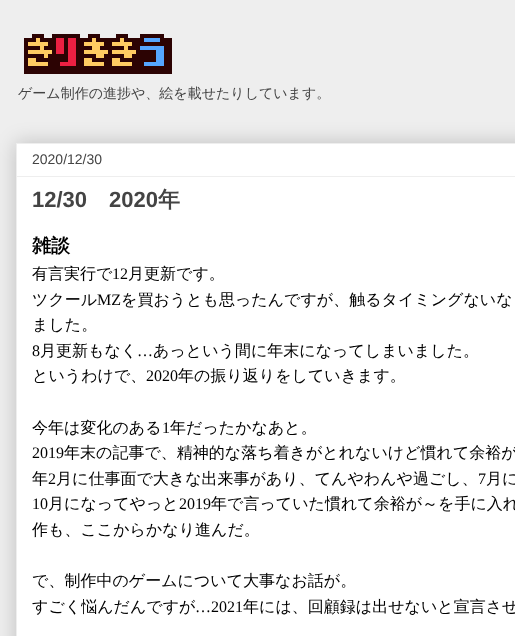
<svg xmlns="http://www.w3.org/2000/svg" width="515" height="636">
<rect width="100%" height="100%" fill="#eee"/>
<image x="24" y="34" width="148" height="40" href="media/1.png"/>
<text x="18" y="98" style="font-family:WenQuanYi Zen Hei;font-size:14px;font-weight:500;fill:#444">ゲーム制作の進捗や、絵を載せたりしています。</text>
<rect x="16" y="143" width="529" height="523" fill="#00000033" filter="blur(10px)"/>
<rect x="16.5" y="143.5" width="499" height="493" fill="#fff" stroke="#eee"/>
<text x="32" y="164" style="font-family:Liberation Sans;font-size:14px;fill:#444">2020/12/30</text>
<rect x="17" y="176" width="498" height="1" fill="#eee"/>
<text x="32" y="207" style="font-family:Liberation Sans;font-size:22px;font-weight:bold;fill:#444">12/30</text>
<text x="109" y="207" style="font-family:Liberation Sans;font-size:22px;font-weight:bold;fill:#444">2020</text>
<text x="158" y="207" style="font-family:WenQuanYi Zen Hei;font-size:22px;font-weight:bold;fill:#444">年</text>
<text x="32" y="252" style="font-family:WenQuanYi Zen Hei;font-size:19px;font-weight:bold;fill:#000">雑談</text>
<text x="32" y="279" style="font-family:WenQuanYi Zen Hei;font-size:16px;font-weight:500;fill:#000">有言実行で</text>
<text x="112" y="279" style="font-family:Liberation Serif;font-size:16px;fill:#000">12</text>
<text x="128" y="279" style="font-family:WenQuanYi Zen Hei;font-size:16px;font-weight:500;fill:#000">月更新です。</text>
<text x="32" y="305" style="font-family:WenQuanYi Zen Hei;font-size:16px;font-weight:500;fill:#000">ツクール</text>
<text x="97" y="305" style="font-family:Liberation Serif;font-size:16px;fill:#000">MZ</text>
<text x="121" y="305" style="font-family:WenQuanYi Zen Hei;font-size:16px;font-weight:500;fill:#000">を買おうとも思ったんですが、触るタイミングないな</text>
<text x="32" y="330" style="font-family:WenQuanYi Zen Hei;font-size:16px;font-weight:500;fill:#000">ました。</text>
<text x="32" y="356" style="font-family:Liberation Serif;font-size:16px;fill:#000">8</text>
<text x="40" y="356" style="font-family:WenQuanYi Zen Hei;font-size:16px;font-weight:500;fill:#000">月更新もなく</text>
<text x="137" y="356" style="font-family:Liberation Serif;font-size:16px;fill:#000">…</text>
<text x="153" y="356" style="font-family:WenQuanYi Zen Hei;font-size:16px;font-weight:500;fill:#000">あっという間に年末になってしまいました。</text>
<text x="32" y="381" style="font-family:WenQuanYi Zen Hei;font-size:16px;font-weight:500;fill:#000">というわけで、</text>
<text x="146" y="381" style="font-family:Liberation Serif;font-size:16px;fill:#000">2020</text>
<text x="178" y="381" style="font-family:WenQuanYi Zen Hei;font-size:16px;font-weight:500;fill:#000">年の振り返りをしていきます。</text>
<text x="32" y="433" style="font-family:WenQuanYi Zen Hei;font-size:16px;font-weight:500;fill:#000">今年は変化のある</text>
<text x="162" y="433" style="font-family:Liberation Serif;font-size:16px;fill:#000">1</text>
<text x="170" y="433" style="font-family:WenQuanYi Zen Hei;font-size:16px;font-weight:500;fill:#000">年だったかなあと。</text>
<text x="32" y="458" style="font-family:Liberation Serif;font-size:16px;fill:#000">2019</text>
<text x="64" y="458" style="font-family:WenQuanYi Zen Hei;font-size:16px;font-weight:500;fill:#000">年末の記事で、精神的な落ち着きがとれないけど慣れて余裕が</text>
<text x="32" y="484" style="font-family:WenQuanYi Zen Hei;font-size:16px;font-weight:500;fill:#000">年</text>
<text x="48" y="484" style="font-family:Liberation Serif;font-size:16px;fill:#000">2</text>
<text x="56" y="484" style="font-family:WenQuanYi Zen Hei;font-size:16px;font-weight:500;fill:#000">月に仕事面で大きな出来事があり、てんやわんや過ごし、</text>
<text x="478" y="484" style="font-family:Liberation Serif;font-size:16px;fill:#000">7</text>
<text x="486" y="484" style="font-family:WenQuanYi Zen Hei;font-size:16px;font-weight:500;fill:#000">月に</text>
<text x="32" y="509" style="font-family:Liberation Serif;font-size:16px;fill:#000">10</text>
<text x="48" y="509" style="font-family:WenQuanYi Zen Hei;font-size:16px;font-weight:500;fill:#000">月になってやっと</text>
<text x="179" y="509" style="font-family:Liberation Serif;font-size:16px;fill:#000">2019</text>
<text x="211" y="509" style="font-family:WenQuanYi Zen Hei;font-size:16px;font-weight:500;fill:#000">年で言っていた慣れて余裕が～を手に入れ</text>
<text x="32" y="535" style="font-family:WenQuanYi Zen Hei;font-size:16px;font-weight:500;fill:#000">作も、ここからかなり進んだ。</text>
<text x="32" y="586" style="font-family:WenQuanYi Zen Hei;font-size:16px;font-weight:500;fill:#000">で、制作中のゲームについて大事なお話が。</text>
<text x="32" y="612" style="font-family:WenQuanYi Zen Hei;font-size:16px;font-weight:500;fill:#000">すごく悩んだんですが</text>
<text x="195" y="612" style="font-family:Liberation Serif;font-size:16px;fill:#000">…2021</text>
<text x="243" y="612" style="font-family:WenQuanYi Zen Hei;font-size:16px;font-weight:500;fill:#000">年には、回顧録は出せないと宣言させ</text>
</svg>
